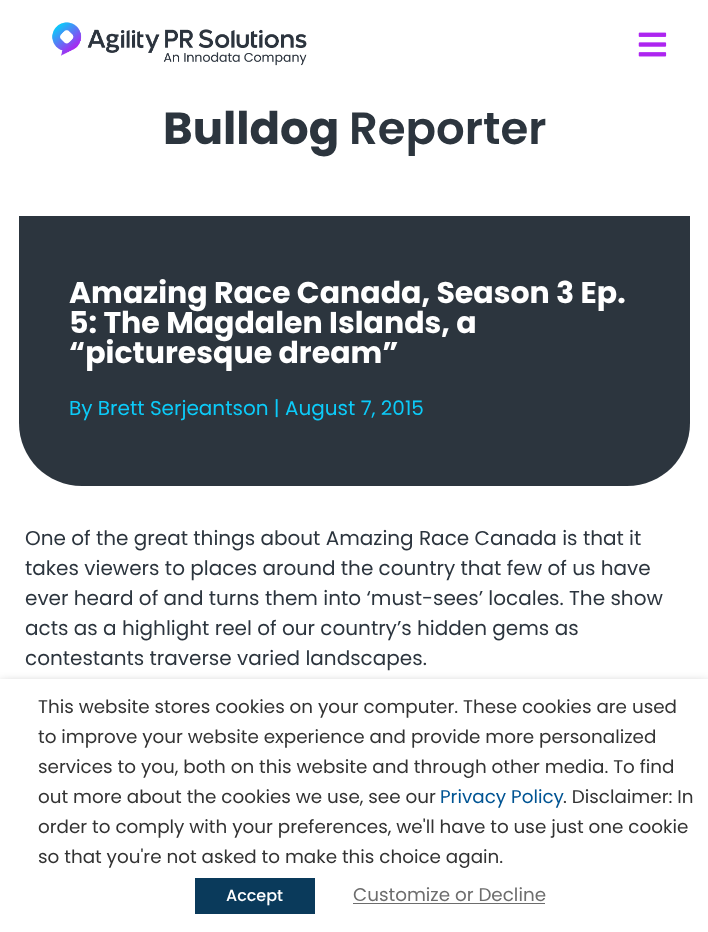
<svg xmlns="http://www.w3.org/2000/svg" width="708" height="932">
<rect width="100%" height="100%" fill="#fff"/>
<image x="52" y="22" width="255" height="44" href="media/1.png"/>
<image x="638" y="32" width="29" height="25" href="media/2.png"/>
<text x="163" y="144" style="font-family:Poppins;font-size:45px;font-weight:bold;fill:#2c353e">Bulldog</text>
<text x="349" y="144" style="font-family:Poppins;font-size:45px;font-weight:600;fill:#2c353e">Reporter</text>
<rect x="19" y="216" width="671" height="178" fill="#2c353e"/>
<text x="69" y="303" style="font-family:Poppins;font-size:30px;font-weight:bold;fill:#fff">Amazing Race Canada, Season 3 Ep.</text>
<text x="69" y="333" style="font-family:Poppins;font-size:30px;font-weight:bold;fill:#fff">5: The Magdalen Islands, a</text>
<text x="69" y="363" style="font-family:Poppins;font-size:30px;font-weight:bold;fill:#fff">“picturesque dream”</text>
<path d="M19 394h671v29c0 35-28 63-63 63h-545c-35 0-63-28-63-63z" fill="#2c353e"/>
<text x="69" y="415" style="font-family:Poppins;font-size:20px;fill:#0ccbf9">By Brett Serjeantson | August 7, 2015</text>
<text x="25" y="545" style="font-family:Poppins;font-size:20px;fill:#2c353e">One of the great things about Amazing Race Canada is that it</text>
<text x="25" y="575" style="font-family:Poppins;font-size:20px;fill:#2c353e">takes viewers to places around the country that few of us have</text>
<text x="25" y="605" style="font-family:Poppins;font-size:20px;fill:#2c353e">ever heard of and turns them into ‘must-sees’ locales. The show</text>
<text x="25" y="635" style="font-family:Poppins;font-size:20px;fill:#2c353e">acts as a highlight reel of our country’s hidden gems as</text>
<text x="25" y="665" style="font-family:Poppins;font-size:20px;fill:#2c353e">contestants traverse varied landscapes.</text>
<rect y="685" width="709" height="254" fill="#00000080" filter="blur(6px)"/>
<rect y="679" width="708" height="253" fill="#fff"/>
<text x="38" y="713" style="font-family:Poppins;font-size:18.35px;fill:#333">This website stores cookies on your computer. These cookies are used</text>
<text x="38" y="743" style="font-family:Poppins;font-size:18.35px;fill:#333">to improve your website experience and provide more personalized</text>
<text x="38" y="773" style="font-family:Poppins;font-size:18.35px;fill:#333">services to you, both on this website and through other media. To find</text>
<text x="38" y="803" style="font-family:Poppins;font-size:18.35px;fill:#333">out more about the cookies we use, see our</text>
<text x="440" y="803" style="font-family:Poppins;font-size:18.35px;fill:#005493">Privacy Policy</text>
<text x="563" y="803" style="font-family:Poppins;font-size:18.35px;fill:#333">. Disclaimer: In</text>
<text x="38" y="833" style="font-family:Poppins;font-size:18.35px;fill:#333">order to comply with your preferences, we'll have to use just one cookie</text>
<text x="38" y="863" style="font-family:Poppins;font-size:18.35px;fill:#333">so that you're not asked to make this choice again.</text>
<rect x="195" y="878" width="120" height="36" fill="#0a3a5b"/>
<text x="226" y="901" style="font-family:Poppins;font-size:16px;font-weight:500;fill:#fff">Accept</text>
<text x="353" y="901" style="font-family:Poppins;font-size:18.35px;fill:#6d6d6d">Customize or Decline</text>
<rect x="353" y="903" width="192" height="1" fill="#6d6d6d"/>
</svg>
